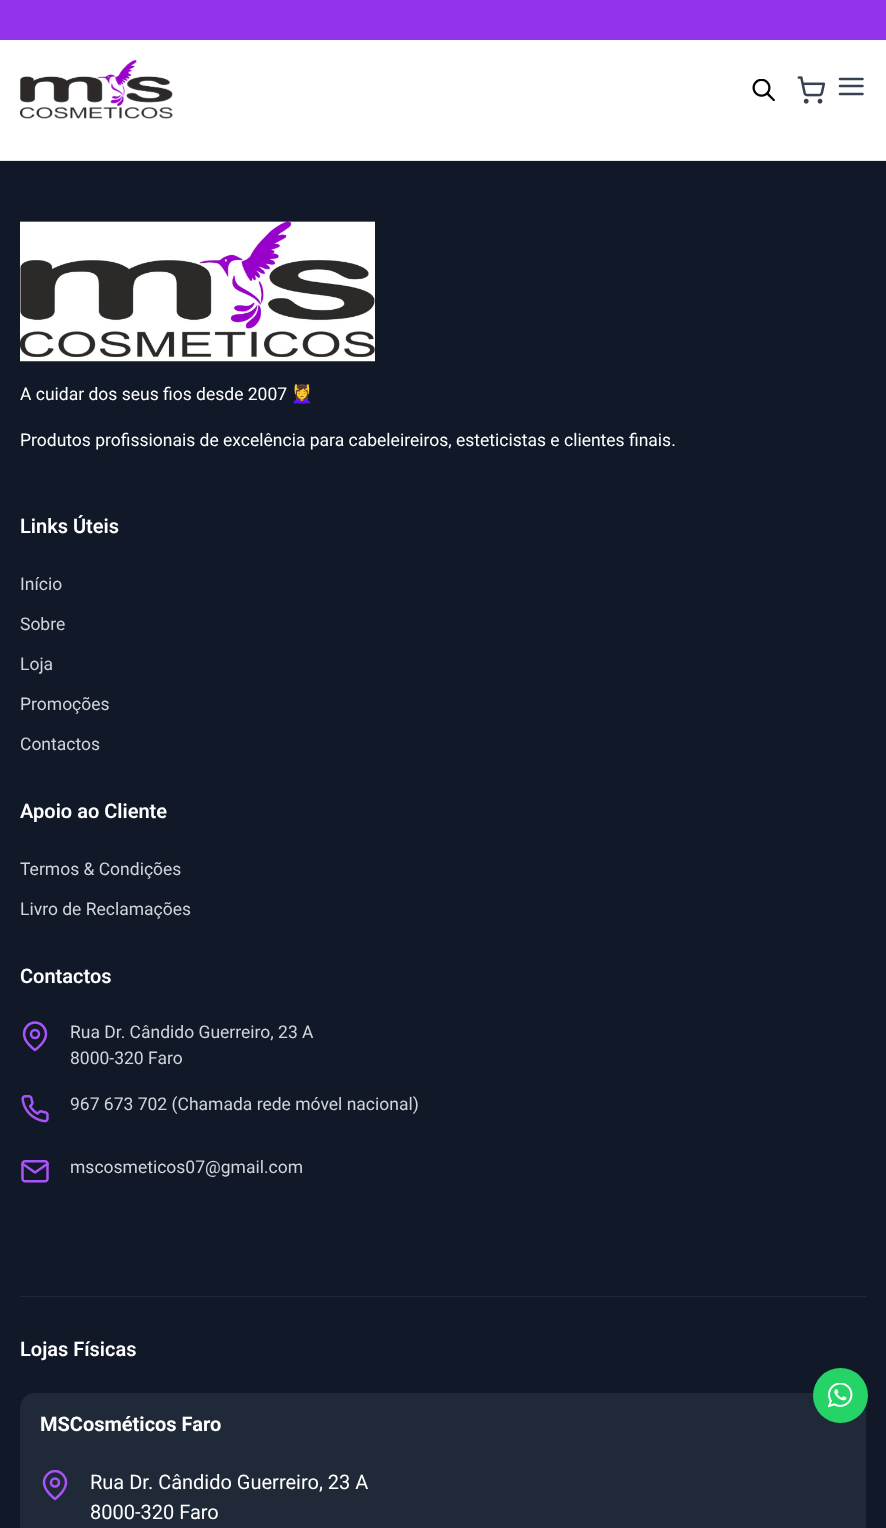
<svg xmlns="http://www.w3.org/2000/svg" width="886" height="1528">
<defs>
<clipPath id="clip1"><rect x="40" y="1470" width="40" height="40"/></clipPath>
</defs>
<rect width="100%" height="100%" fill="#fff"/>
<rect y="160" width="886" height="1" fill="#e5e7eb"/>
<rect width="886" height="40" fill="#9333ea"/>
<image x="20" y="60" width="153" height="59" href="media/1.png"/>
<image x="752" y="79" width="23" height="22" href="media/2.png"/>
<image x="797" y="76" width="29" height="28" href="media/3.png"/>
<path d="M840 79h22.5m-22.5 7h22.5m-22.5 8h22.5" fill="none" stroke="#374151" stroke-width="2.5" stroke-linecap="round" stroke-linejoin="round"/>
<rect y="161" width="886" height="1367" fill="#111827"/>
<image x="20" y="221" width="355" height="141" href="media/4.png"/>
<text x="20" y="400" style="font-family:Roboto;font-size:17.5px;fill:#fff">A cuidar dos seus fios desde 2007</text>
<text x="291" y="400" style="font-family:Noto Color Emoji;font-size:17.5px;fill:#fff">💆‍♀️</text>
<text x="20" y="446" style="font-family:Roboto;font-size:17.5px;fill:#fff">Produtos profissionais de excelência para cabeleireiros, esteticistas e clientes finais.</text>
<text x="20" y="533" style="font-family:Roboto;font-size:20px;font-weight:600;fill:#fff">Links Úteis</text>
<text x="20" y="590" style="font-family:Roboto;font-size:17.5px;fill:#d1d5db">Início</text>
<text x="20" y="630" style="font-family:Roboto;font-size:17.5px;fill:#d1d5db">Sobre</text>
<text x="20" y="670" style="font-family:Roboto;font-size:17.5px;fill:#d1d5db">Loja</text>
<text x="20" y="710" style="font-family:Roboto;font-size:17.5px;fill:#d1d5db">Promoções</text>
<text x="20" y="750" style="font-family:Roboto;font-size:17.5px;fill:#d1d5db">Contactos</text>
<text x="20" y="818" style="font-family:Roboto;font-size:20px;font-weight:600;fill:#fff">Apoio ao Cliente</text>
<text x="20" y="875" style="font-family:Roboto;font-size:17.5px;fill:#d1d5db">Termos &amp; Condições</text>
<text x="20" y="915" style="font-family:Roboto;font-size:17.5px;fill:#d1d5db">Livro de Reclamações</text>
<text x="20" y="983" style="font-family:Roboto;font-size:20px;font-weight:600;fill:#fff">Contactos</text>
<path d="M46 1034c0 8.5-11 16-11 16c0 0-11-7.5-11-16c0-6.5 5-11.5 11-11.5c6 0 11 5 11 11.5z" fill="none" stroke="#a855f7" stroke-width="2.5" stroke-linecap="round" stroke-linejoin="round"/>
<circle cx="35" cy="1034" r="4" fill="none" stroke="#a855f7" stroke-width="2.5"/>
<text x="70" y="1038" style="font-family:Roboto;font-size:17.5px;fill:#d1d5db">Rua Dr. Cândido Guerreiro, 23 A</text>
<text x="70" y="1064" style="font-family:Roboto;font-size:17.5px;fill:#d1d5db">8000-320 Faro</text>
<image x="21" y="1095" width="28" height="28" href="media/5.png"/>
<text x="70" y="1110" style="font-family:Roboto;font-size:17.5px;fill:#d1d5db">967 673 702 (Chamada rede móvel nacional)</text>
<image x="21" y="1160" width="28" height="23" href="media/6.png"/>
<text x="70" y="1173" style="font-family:Roboto;font-size:17.5px;fill:#d1d5db">mscosmeticos07@gmail.com</text>
<rect x="20" y="1296" width="846" height="1" fill="#1f2937"/>
<text x="20" y="1356" style="font-family:Roboto;font-size:20px;font-weight:600;fill:#fff">Lojas Físicas</text>
<rect x="20" y="1393" width="846" height="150" rx="15" fill="#1f2937"/>
<text x="40" y="1431" style="font-family:Roboto;font-size:20px;font-weight:bold;fill:#fff">MSCosméticos Faro</text>
<g clip-path="url(#clip1)">
<path d="M66 1482.5c0 8.5-11 16.5-11 16.5c0 0-11-8-11-16.5c0-6 5-11.5 11-11.5c6 0 11 5.5 11 11.5z" fill="none" stroke="#a855f7" stroke-width="2.5" stroke-linecap="round" stroke-linejoin="round"/>
</g>
<circle cx="55" cy="1482.5" r="4" fill="none" stroke="#a855f7" stroke-width="2.5"/>
<text x="90" y="1489" style="font-family:Roboto;font-size:20px;fill:#fff">Rua Dr. Cândido Guerreiro, 23 A</text>
<text x="90" y="1519" style="font-family:Roboto;font-size:20px;fill:#fff">8000-320 Faro</text>
<circle cx="840.5" cy="1395.5" r="27.5" fill="#25d366"/>
<image x="828" y="1383" width="25" height="25" href="media/7.png"/>
</svg>
